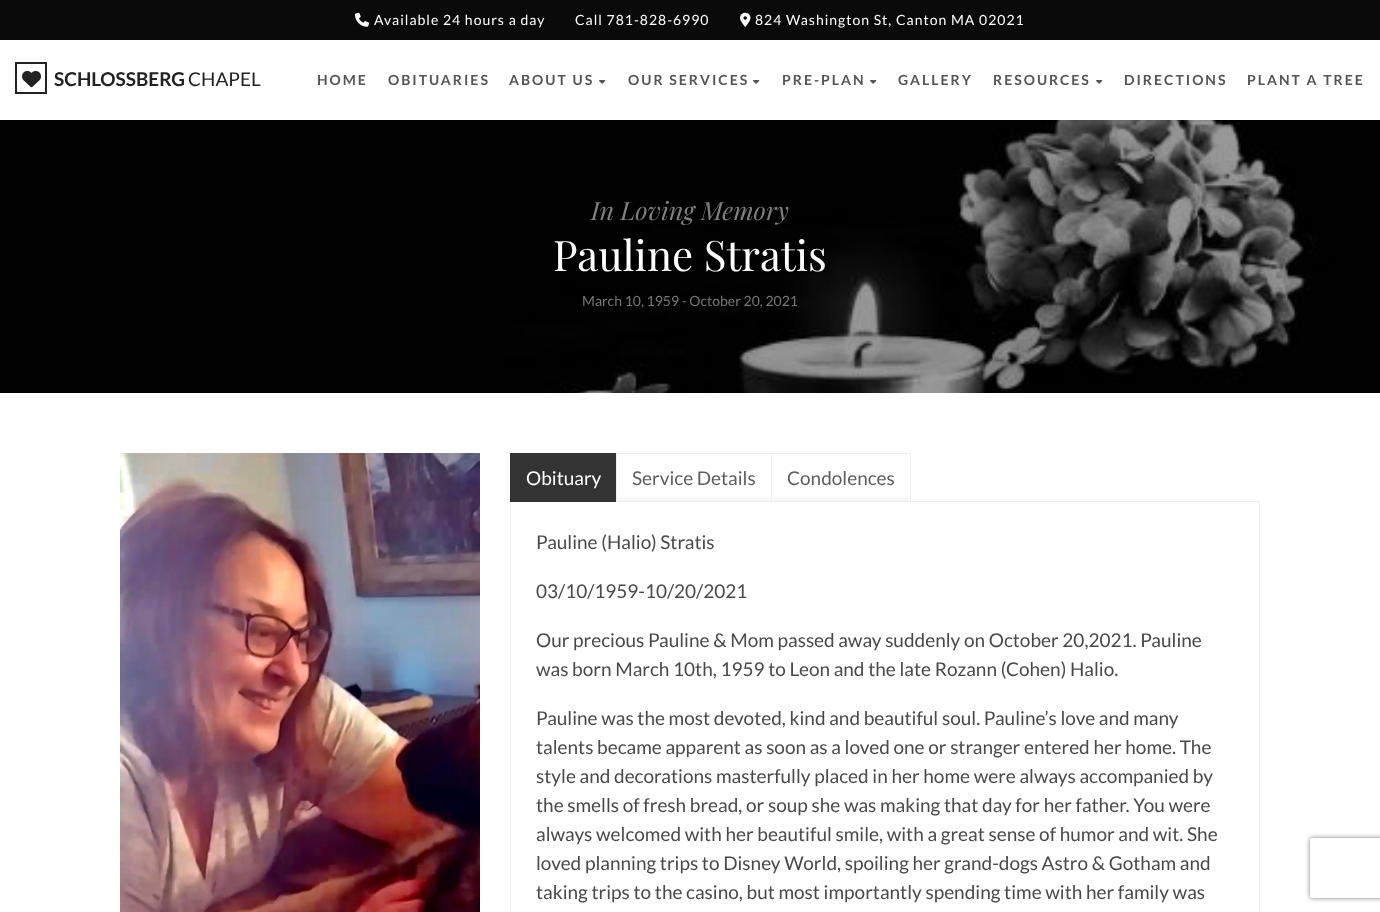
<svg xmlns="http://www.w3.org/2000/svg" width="1380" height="912">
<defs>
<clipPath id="clip1"><rect x="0" y="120" width="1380" height="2"/></clipPath>
<clipPath id="clip2"><rect x="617" y="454" width="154" height="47"/></clipPath>
<clipPath id="clip3"><rect x="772" y="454" width="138" height="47"/></clipPath>
<clipPath id="clip4"><path d="M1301 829h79v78h-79zm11 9h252c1 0 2 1 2 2v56c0 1-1 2-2 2h-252c-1 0-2-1-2-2v-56c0-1 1-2 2-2z" clip-rule="evenodd"/></clipPath>
</defs>
<rect width="100%" height="100%" fill="#fff"/>
<rect width="1380" height="40" fill="#0a0a0a"/>
<image x="355" y="12" width="14" height="15" href="media/1.png"/>
<text x="374" y="25" style="font-family:Lato;font-size:14px;letter-spacing:1px;fill:#fff">Available 24 hours a day</text>
<text x="575" y="25" style="font-family:Lato;font-size:14px;letter-spacing:1px;fill:#fff">Call 781-828-6990</text>
<image x="740" y="12" width="11" height="15" href="media/2.png"/>
<text x="755" y="25" style="font-family:Lato;font-size:14px;letter-spacing:1px;fill:#fff">824 Washington St, Canton MA 02021</text>
<image x="0" y="120" width="1380" height="273" href="media/5.png"/>
<g clip-path="url(#clip1)">
<rect y="41" width="1380" height="80" fill="#0000001a" filter="blur(1px)"/>
</g>
<rect x="16" y="63" width="30" height="30" fill="none" stroke="#222" stroke-width="2"/>
<image x="22" y="71" width="19" height="17" href="media/3.png"/>
<text x="54" y="86" style="font-family:Lato;font-size:19px;font-weight:bold;fill:#222">SCHLOSSBERG</text>
<text x="188" y="86" style="font-family:Lato;font-size:19px;fill:#222">CHAPEL</text>
<text x="317" y="85" style="font-family:Lato;font-size:14px;font-weight:bold;letter-spacing:2px;fill:#555">HOME</text>
<text x="388" y="85" style="font-family:Lato;font-size:14px;font-weight:bold;letter-spacing:2px;fill:#555">OBITUARIES</text>
<text x="509" y="85" style="font-family:Lato;font-size:14px;font-weight:bold;letter-spacing:2px;fill:#555">ABOUT US</text>
<image x="599" y="80" width="7" height="4" href="media/4.png"/>
<text x="628" y="85" style="font-family:Lato;font-size:14px;font-weight:bold;letter-spacing:2px;fill:#555">OUR SERVICES</text>
<image x="753" y="80" width="7" height="4" href="media/4.png"/>
<text x="782" y="85" style="font-family:Lato;font-size:14px;font-weight:bold;letter-spacing:2px;fill:#555">PRE-PLAN</text>
<image x="870" y="80" width="7" height="4" href="media/4.png"/>
<text x="898" y="85" style="font-family:Lato;font-size:14px;font-weight:bold;letter-spacing:2px;fill:#555">GALLERY</text>
<text x="993" y="85" style="font-family:Lato;font-size:14px;font-weight:bold;letter-spacing:2px;fill:#555">RESOURCES</text>
<image x="1096" y="80" width="7" height="4" href="media/4.png"/>
<text x="1124" y="85" style="font-family:Lato;font-size:14px;font-weight:bold;letter-spacing:2px;fill:#555">DIRECTIONS</text>
<text x="1247" y="85" style="font-family:Lato;font-size:14px;font-weight:bold;letter-spacing:2px;fill:#555">PLANT A TREE</text>
<text x="591" y="220" style="font-family:Playfair Display;font-size:25.25px;font-style:italic;fill:#808080">In Loving Memory</text>
<text x="553" y="271" style="font-family:Playfair Display;font-size:42px;fill:#fff">Pauline Stratis</text>
<text x="582" y="306" style="font-family:Lato;font-size:14px;fill:#777">March 10, 1959 - October 20, 2021</text>
<image x="120" y="453" width="360" height="459" href="media/6.png"/>
<rect x="911" y="501" width="349" height="1" fill="#eee"/>
<rect x="510" y="453" width="106" height="49" fill="#333"/>
<text x="526" y="485" style="font-family:Lato;font-size:19px;fill:#fff">Obituary</text>
<rect x="616.5" y="453.5" width="155" height="48" fill="none" stroke="#eee"/>
<text x="632" y="485" style="font-family:Lato;font-size:19px;fill:#5e5e5e">Service Details</text>
<g clip-path="url(#clip2)">
<rect x="617" y="502" width="154" height="1" fill="#00000066" filter="blur(3px)"/>
</g>
<rect x="771.5" y="453.5" width="139" height="48" fill="none" stroke="#eee"/>
<text x="787" y="485" style="font-family:Lato;font-size:19px;fill:#5e5e5e">Condolences</text>
<g clip-path="url(#clip3)">
<rect x="772" y="502" width="138" height="1" fill="#00000066" filter="blur(3px)"/>
</g>
<rect x="1259" y="502" width="1" height="410" fill="#eee"/>
<rect x="510" y="502" width="1" height="410" fill="#eee"/>
<text x="536" y="549" style="font-family:Lato;font-size:19px;fill:#494949">Pauline (Halio) Stratis</text>
<text x="536" y="598" style="font-family:Lato;font-size:19px;fill:#494949">03/10/1959-10/20/2021</text>
<text x="536" y="647" style="font-family:Lato;font-size:19px;fill:#494949">Our precious Pauline &amp; Mom passed away suddenly on October 20,2021. Pauline</text>
<text x="536" y="676" style="font-family:Lato;font-size:19px;fill:#494949">was born March 10th, 1959 to Leon and the late Rozann (Cohen) Halio.</text>
<text x="536" y="725" style="font-family:Lato;font-size:19px;fill:#494949">Pauline was the most devoted, kind and beautiful soul. Pauline’s love and many</text>
<text x="536" y="754" style="font-family:Lato;font-size:19px;fill:#494949">talents became apparent as soon as a loved one or stranger entered her home. The</text>
<text x="536" y="783" style="font-family:Lato;font-size:19px;fill:#494949">style and decorations masterfully placed in her home were always accompanied by</text>
<text x="536" y="812" style="font-family:Lato;font-size:19px;fill:#494949">the smells of fresh bread, or soup she was making that day for her father. You were</text>
<text x="536" y="841" style="font-family:Lato;font-size:19px;fill:#494949">always welcomed with her beautiful smile, with a great sense of humor and wit. She</text>
<text x="536" y="870" style="font-family:Lato;font-size:19px;fill:#494949">loved planning trips to Disney World, spoiling her grand-dogs Astro &amp; Gotham and</text>
<text x="536" y="899" style="font-family:Lato;font-size:19px;fill:#494949">taking trips to the casino, but most importantly spending time with her family was</text>
<g clip-path="url(#clip4)">
<rect x="1310" y="838" width="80" height="60" rx="2" fill="#808080" filter="blur(2.5px)"/>
</g>
</svg>
